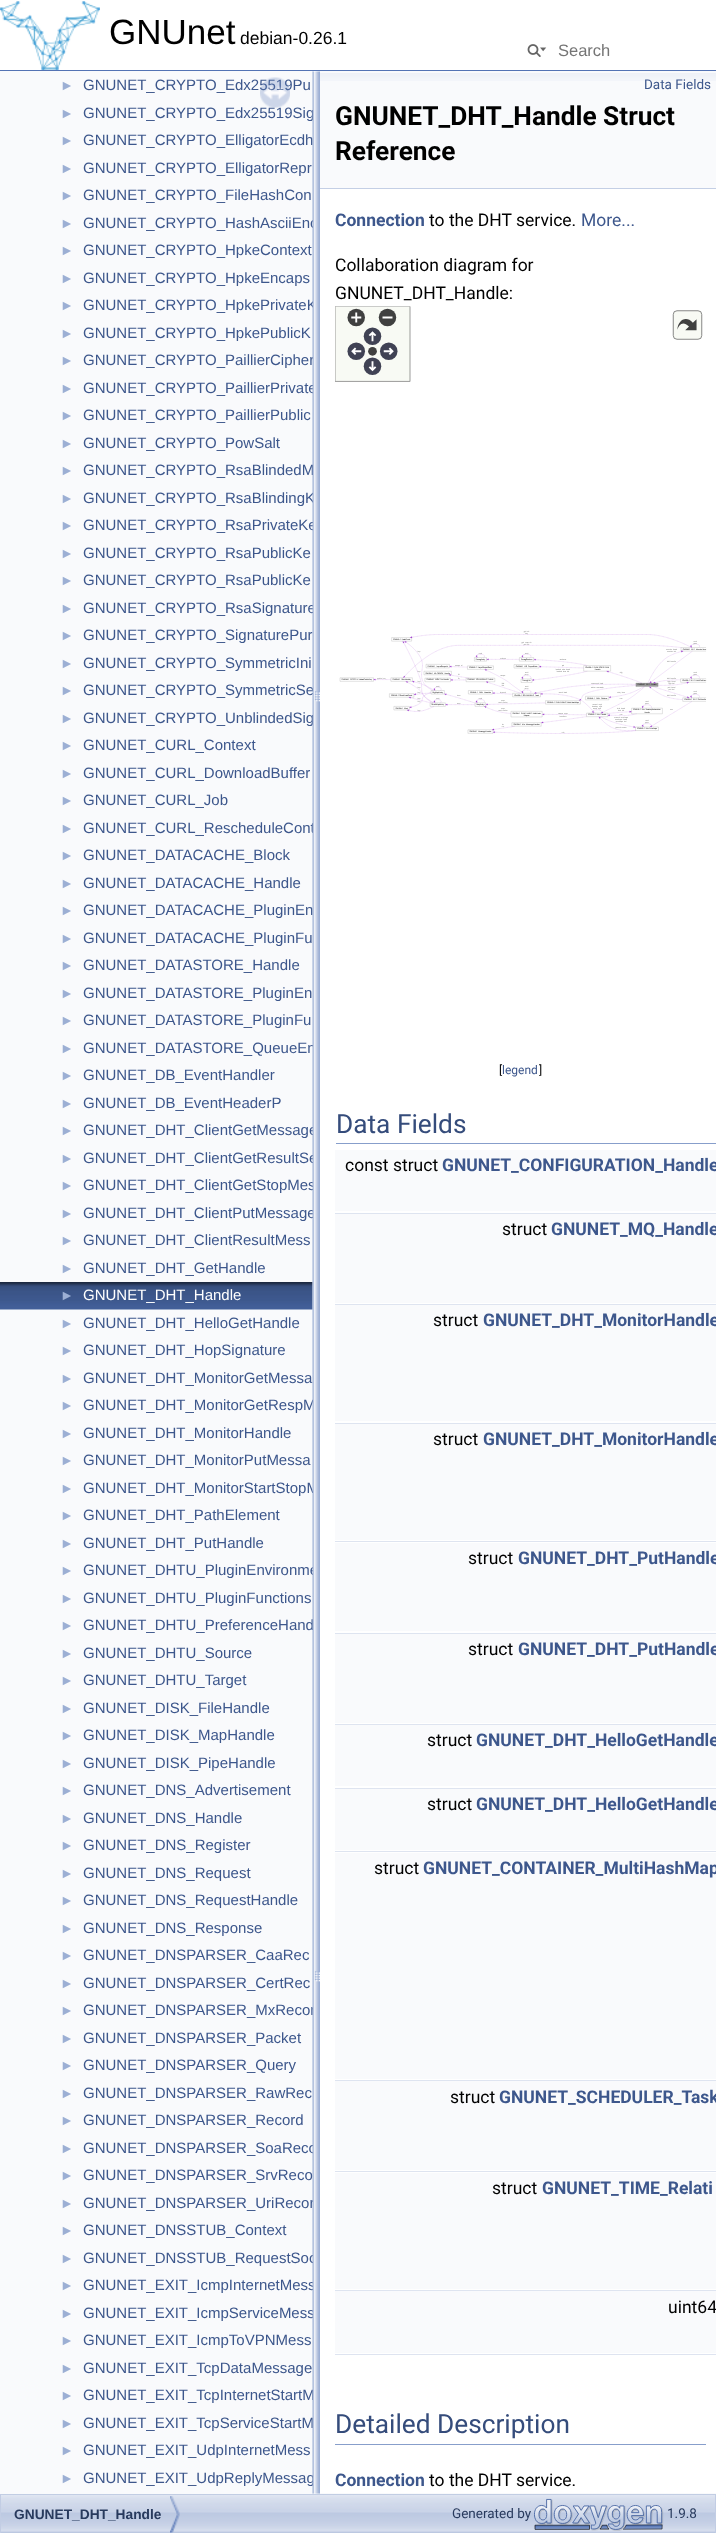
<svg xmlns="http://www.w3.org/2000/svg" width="716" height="2533">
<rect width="100%" height="100%" fill="#fff"/>
<rect y="70" width="716" height="1" fill="#5373b4"/>
<image x="0" y="1" width="100" height="69" href="media/1.png"/>
<text x="109" y="44" style="font-family:Liberation Sans;font-size:35px;fill:#000">GNUnet</text>
<text x="240" y="44" style="font-family:Liberation Sans;font-size:17.5px;fill:#000">debian-0.26.1</text>
<image x="527" y="44" width="20" height="13" href="media/2.png"/>
<text x="558" y="56" style="font-family:Liberation Sans;font-size:16.5px;fill:#757575">Search</text>
<image x="1" y="2493" width="715" height="40" href="media/8.png"/>
<rect y="71" width="313" height="2423" fill="#f9fafc"/>
<text x="83" y="90" style="font-family:Liberation Sans;font-size:15px;fill:#3d578c">GNUNET_CRYPTO_Edx25519Pu</text>
<text x="83" y="118" style="font-family:Liberation Sans;font-size:15px;fill:#3d578c">GNUNET_CRYPTO_Edx25519Sig</text>
<image x="260" y="77" width="30" height="31" href="media/3.png"/>
<text x="60" y="90" style="font-family:Liberation Sans;font-size:14px;fill:#9cafd4">►</text>
<text x="60" y="118" style="font-family:Liberation Sans;font-size:14px;fill:#9cafd4">►</text>
<text x="60" y="145" style="font-family:Liberation Sans;font-size:14px;fill:#9cafd4">►</text>
<text x="83" y="145" style="font-family:Liberation Sans;font-size:15px;fill:#3d578c">GNUNET_CRYPTO_ElligatorEcdh</text>
<text x="60" y="173" style="font-family:Liberation Sans;font-size:14px;fill:#9cafd4">►</text>
<text x="83" y="173" style="font-family:Liberation Sans;font-size:15px;fill:#3d578c">GNUNET_CRYPTO_ElligatorRepr</text>
<text x="60" y="200" style="font-family:Liberation Sans;font-size:14px;fill:#9cafd4">►</text>
<text x="83" y="200" style="font-family:Liberation Sans;font-size:15px;fill:#3d578c">GNUNET_CRYPTO_FileHashCon</text>
<text x="60" y="228" style="font-family:Liberation Sans;font-size:14px;fill:#9cafd4">►</text>
<text x="83" y="228" style="font-family:Liberation Sans;font-size:15px;fill:#3d578c">GNUNET_CRYPTO_HashAsciiEnc</text>
<text x="60" y="255" style="font-family:Liberation Sans;font-size:14px;fill:#9cafd4">►</text>
<text x="83" y="255" style="font-family:Liberation Sans;font-size:15px;fill:#3d578c">GNUNET_CRYPTO_HpkeContext</text>
<text x="60" y="283" style="font-family:Liberation Sans;font-size:14px;fill:#9cafd4">►</text>
<text x="83" y="283" style="font-family:Liberation Sans;font-size:15px;fill:#3d578c">GNUNET_CRYPTO_HpkeEncaps</text>
<text x="60" y="310" style="font-family:Liberation Sans;font-size:14px;fill:#9cafd4">►</text>
<text x="83" y="310" style="font-family:Liberation Sans;font-size:15px;fill:#3d578c">GNUNET_CRYPTO_HpkePrivateK</text>
<text x="60" y="338" style="font-family:Liberation Sans;font-size:14px;fill:#9cafd4">►</text>
<text x="83" y="338" style="font-family:Liberation Sans;font-size:15px;fill:#3d578c">GNUNET_CRYPTO_HpkePublicK</text>
<text x="60" y="365" style="font-family:Liberation Sans;font-size:14px;fill:#9cafd4">►</text>
<text x="83" y="365" style="font-family:Liberation Sans;font-size:15px;fill:#3d578c">GNUNET_CRYPTO_PaillierCipher</text>
<text x="60" y="393" style="font-family:Liberation Sans;font-size:14px;fill:#9cafd4">►</text>
<text x="83" y="393" style="font-family:Liberation Sans;font-size:15px;fill:#3d578c">GNUNET_CRYPTO_PaillierPrivate</text>
<text x="60" y="420" style="font-family:Liberation Sans;font-size:14px;fill:#9cafd4">►</text>
<text x="83" y="420" style="font-family:Liberation Sans;font-size:15px;fill:#3d578c">GNUNET_CRYPTO_PaillierPublic</text>
<text x="60" y="448" style="font-family:Liberation Sans;font-size:14px;fill:#9cafd4">►</text>
<text x="83" y="448" style="font-family:Liberation Sans;font-size:15px;fill:#3d578c">GNUNET_CRYPTO_PowSalt</text>
<text x="60" y="475" style="font-family:Liberation Sans;font-size:14px;fill:#9cafd4">►</text>
<text x="83" y="475" style="font-family:Liberation Sans;font-size:15px;fill:#3d578c">GNUNET_CRYPTO_RsaBlindedM</text>
<text x="60" y="503" style="font-family:Liberation Sans;font-size:14px;fill:#9cafd4">►</text>
<text x="83" y="503" style="font-family:Liberation Sans;font-size:15px;fill:#3d578c">GNUNET_CRYPTO_RsaBlindingK</text>
<text x="60" y="530" style="font-family:Liberation Sans;font-size:14px;fill:#9cafd4">►</text>
<text x="83" y="530" style="font-family:Liberation Sans;font-size:15px;fill:#3d578c">GNUNET_CRYPTO_RsaPrivateKe</text>
<text x="60" y="558" style="font-family:Liberation Sans;font-size:14px;fill:#9cafd4">►</text>
<text x="83" y="558" style="font-family:Liberation Sans;font-size:15px;fill:#3d578c">GNUNET_CRYPTO_RsaPublicKe</text>
<text x="60" y="585" style="font-family:Liberation Sans;font-size:14px;fill:#9cafd4">►</text>
<text x="83" y="585" style="font-family:Liberation Sans;font-size:15px;fill:#3d578c">GNUNET_CRYPTO_RsaPublicKe</text>
<text x="60" y="613" style="font-family:Liberation Sans;font-size:14px;fill:#9cafd4">►</text>
<text x="83" y="613" style="font-family:Liberation Sans;font-size:15px;fill:#3d578c">GNUNET_CRYPTO_RsaSignature</text>
<text x="60" y="640" style="font-family:Liberation Sans;font-size:14px;fill:#9cafd4">►</text>
<text x="83" y="640" style="font-family:Liberation Sans;font-size:15px;fill:#3d578c">GNUNET_CRYPTO_SignaturePur</text>
<text x="60" y="668" style="font-family:Liberation Sans;font-size:14px;fill:#9cafd4">►</text>
<text x="83" y="668" style="font-family:Liberation Sans;font-size:15px;fill:#3d578c">GNUNET_CRYPTO_SymmetricIni</text>
<text x="60" y="695" style="font-family:Liberation Sans;font-size:14px;fill:#9cafd4">►</text>
<text x="83" y="695" style="font-family:Liberation Sans;font-size:15px;fill:#3d578c">GNUNET_CRYPTO_SymmetricSe</text>
<text x="60" y="723" style="font-family:Liberation Sans;font-size:14px;fill:#9cafd4">►</text>
<text x="83" y="723" style="font-family:Liberation Sans;font-size:15px;fill:#3d578c">GNUNET_CRYPTO_UnblindedSig</text>
<text x="60" y="750" style="font-family:Liberation Sans;font-size:14px;fill:#9cafd4">►</text>
<text x="83" y="750" style="font-family:Liberation Sans;font-size:15px;fill:#3d578c">GNUNET_CURL_Context</text>
<text x="60" y="778" style="font-family:Liberation Sans;font-size:14px;fill:#9cafd4">►</text>
<text x="83" y="778" style="font-family:Liberation Sans;font-size:15px;fill:#3d578c">GNUNET_CURL_DownloadBuffer</text>
<text x="60" y="805" style="font-family:Liberation Sans;font-size:14px;fill:#9cafd4">►</text>
<text x="83" y="805" style="font-family:Liberation Sans;font-size:15px;fill:#3d578c">GNUNET_CURL_Job</text>
<text x="60" y="833" style="font-family:Liberation Sans;font-size:14px;fill:#9cafd4">►</text>
<text x="83" y="833" style="font-family:Liberation Sans;font-size:15px;fill:#3d578c">GNUNET_CURL_RescheduleCont</text>
<text x="60" y="860" style="font-family:Liberation Sans;font-size:14px;fill:#9cafd4">►</text>
<text x="83" y="860" style="font-family:Liberation Sans;font-size:15px;fill:#3d578c">GNUNET_DATACACHE_Block</text>
<text x="60" y="888" style="font-family:Liberation Sans;font-size:14px;fill:#9cafd4">►</text>
<text x="83" y="888" style="font-family:Liberation Sans;font-size:15px;fill:#3d578c">GNUNET_DATACACHE_Handle</text>
<text x="60" y="915" style="font-family:Liberation Sans;font-size:14px;fill:#9cafd4">►</text>
<text x="83" y="915" style="font-family:Liberation Sans;font-size:15px;fill:#3d578c">GNUNET_DATACACHE_PluginEn</text>
<text x="60" y="943" style="font-family:Liberation Sans;font-size:14px;fill:#9cafd4">►</text>
<text x="83" y="943" style="font-family:Liberation Sans;font-size:15px;fill:#3d578c">GNUNET_DATACACHE_PluginFu</text>
<text x="60" y="970" style="font-family:Liberation Sans;font-size:14px;fill:#9cafd4">►</text>
<text x="83" y="970" style="font-family:Liberation Sans;font-size:15px;fill:#3d578c">GNUNET_DATASTORE_Handle</text>
<text x="60" y="998" style="font-family:Liberation Sans;font-size:14px;fill:#9cafd4">►</text>
<text x="83" y="998" style="font-family:Liberation Sans;font-size:15px;fill:#3d578c">GNUNET_DATASTORE_PluginEn</text>
<text x="60" y="1025" style="font-family:Liberation Sans;font-size:14px;fill:#9cafd4">►</text>
<text x="83" y="1025" style="font-family:Liberation Sans;font-size:15px;fill:#3d578c">GNUNET_DATASTORE_PluginFu</text>
<text x="60" y="1053" style="font-family:Liberation Sans;font-size:14px;fill:#9cafd4">►</text>
<text x="83" y="1053" style="font-family:Liberation Sans;font-size:15px;fill:#3d578c">GNUNET_DATASTORE_QueueEn</text>
<text x="60" y="1080" style="font-family:Liberation Sans;font-size:14px;fill:#9cafd4">►</text>
<text x="83" y="1080" style="font-family:Liberation Sans;font-size:15px;fill:#3d578c">GNUNET_DB_EventHandler</text>
<text x="60" y="1108" style="font-family:Liberation Sans;font-size:14px;fill:#9cafd4">►</text>
<text x="83" y="1108" style="font-family:Liberation Sans;font-size:15px;fill:#3d578c">GNUNET_DB_EventHeaderP</text>
<text x="60" y="1135" style="font-family:Liberation Sans;font-size:14px;fill:#9cafd4">►</text>
<text x="83" y="1135" style="font-family:Liberation Sans;font-size:15px;fill:#3d578c">GNUNET_DHT_ClientGetMessage</text>
<text x="60" y="1163" style="font-family:Liberation Sans;font-size:14px;fill:#9cafd4">►</text>
<text x="83" y="1163" style="font-family:Liberation Sans;font-size:15px;fill:#3d578c">GNUNET_DHT_ClientGetResultSe</text>
<text x="60" y="1190" style="font-family:Liberation Sans;font-size:14px;fill:#9cafd4">►</text>
<text x="83" y="1190" style="font-family:Liberation Sans;font-size:15px;fill:#3d578c">GNUNET_DHT_ClientGetStopMes</text>
<text x="60" y="1218" style="font-family:Liberation Sans;font-size:14px;fill:#9cafd4">►</text>
<text x="83" y="1218" style="font-family:Liberation Sans;font-size:15px;fill:#3d578c">GNUNET_DHT_ClientPutMessage</text>
<text x="60" y="1245" style="font-family:Liberation Sans;font-size:14px;fill:#9cafd4">►</text>
<text x="83" y="1245" style="font-family:Liberation Sans;font-size:15px;fill:#3d578c">GNUNET_DHT_ClientResultMess</text>
<text x="60" y="1273" style="font-family:Liberation Sans;font-size:14px;fill:#9cafd4">►</text>
<text x="83" y="1273" style="font-family:Liberation Sans;font-size:15px;fill:#3d578c">GNUNET_DHT_GetHandle</text>
<image x="0" y="1282" width="313" height="28" href="media/4.png"/>
<text x="60" y="1300" style="font-family:Liberation Sans;font-size:14px;fill:#9cafd4">►</text>
<text x="83" y="1300" style="font-family:Liberation Sans;font-size:15px;fill:#fff">GNUNET_DHT_Handle</text>
<text x="60" y="1328" style="font-family:Liberation Sans;font-size:14px;fill:#9cafd4">►</text>
<text x="83" y="1328" style="font-family:Liberation Sans;font-size:15px;fill:#3d578c">GNUNET_DHT_HelloGetHandle</text>
<text x="60" y="1355" style="font-family:Liberation Sans;font-size:14px;fill:#9cafd4">►</text>
<text x="83" y="1355" style="font-family:Liberation Sans;font-size:15px;fill:#3d578c">GNUNET_DHT_HopSignature</text>
<text x="60" y="1383" style="font-family:Liberation Sans;font-size:14px;fill:#9cafd4">►</text>
<text x="83" y="1383" style="font-family:Liberation Sans;font-size:15px;fill:#3d578c">GNUNET_DHT_MonitorGetMessa</text>
<text x="60" y="1410" style="font-family:Liberation Sans;font-size:14px;fill:#9cafd4">►</text>
<text x="83" y="1410" style="font-family:Liberation Sans;font-size:15px;fill:#3d578c">GNUNET_DHT_MonitorGetRespM</text>
<text x="60" y="1438" style="font-family:Liberation Sans;font-size:14px;fill:#9cafd4">►</text>
<text x="83" y="1438" style="font-family:Liberation Sans;font-size:15px;fill:#3d578c">GNUNET_DHT_MonitorHandle</text>
<text x="60" y="1465" style="font-family:Liberation Sans;font-size:14px;fill:#9cafd4">►</text>
<text x="83" y="1465" style="font-family:Liberation Sans;font-size:15px;fill:#3d578c">GNUNET_DHT_MonitorPutMessa</text>
<text x="60" y="1493" style="font-family:Liberation Sans;font-size:14px;fill:#9cafd4">►</text>
<text x="83" y="1493" style="font-family:Liberation Sans;font-size:15px;fill:#3d578c">GNUNET_DHT_MonitorStartStopM</text>
<text x="60" y="1520" style="font-family:Liberation Sans;font-size:14px;fill:#9cafd4">►</text>
<text x="83" y="1520" style="font-family:Liberation Sans;font-size:15px;fill:#3d578c">GNUNET_DHT_PathElement</text>
<text x="60" y="1548" style="font-family:Liberation Sans;font-size:14px;fill:#9cafd4">►</text>
<text x="83" y="1548" style="font-family:Liberation Sans;font-size:15px;fill:#3d578c">GNUNET_DHT_PutHandle</text>
<text x="60" y="1575" style="font-family:Liberation Sans;font-size:14px;fill:#9cafd4">►</text>
<text x="83" y="1575" style="font-family:Liberation Sans;font-size:15px;fill:#3d578c">GNUNET_DHTU_PluginEnvironme</text>
<text x="60" y="1603" style="font-family:Liberation Sans;font-size:14px;fill:#9cafd4">►</text>
<text x="83" y="1603" style="font-family:Liberation Sans;font-size:15px;fill:#3d578c">GNUNET_DHTU_PluginFunctions</text>
<text x="60" y="1630" style="font-family:Liberation Sans;font-size:14px;fill:#9cafd4">►</text>
<text x="83" y="1630" style="font-family:Liberation Sans;font-size:15px;fill:#3d578c">GNUNET_DHTU_PreferenceHand</text>
<text x="60" y="1658" style="font-family:Liberation Sans;font-size:14px;fill:#9cafd4">►</text>
<text x="83" y="1658" style="font-family:Liberation Sans;font-size:15px;fill:#3d578c">GNUNET_DHTU_Source</text>
<text x="60" y="1685" style="font-family:Liberation Sans;font-size:14px;fill:#9cafd4">►</text>
<text x="83" y="1685" style="font-family:Liberation Sans;font-size:15px;fill:#3d578c">GNUNET_DHTU_Target</text>
<text x="60" y="1713" style="font-family:Liberation Sans;font-size:14px;fill:#9cafd4">►</text>
<text x="83" y="1713" style="font-family:Liberation Sans;font-size:15px;fill:#3d578c">GNUNET_DISK_FileHandle</text>
<text x="60" y="1740" style="font-family:Liberation Sans;font-size:14px;fill:#9cafd4">►</text>
<text x="83" y="1740" style="font-family:Liberation Sans;font-size:15px;fill:#3d578c">GNUNET_DISK_MapHandle</text>
<text x="60" y="1768" style="font-family:Liberation Sans;font-size:14px;fill:#9cafd4">►</text>
<text x="83" y="1768" style="font-family:Liberation Sans;font-size:15px;fill:#3d578c">GNUNET_DISK_PipeHandle</text>
<text x="60" y="1795" style="font-family:Liberation Sans;font-size:14px;fill:#9cafd4">►</text>
<text x="83" y="1795" style="font-family:Liberation Sans;font-size:15px;fill:#3d578c">GNUNET_DNS_Advertisement</text>
<text x="60" y="1823" style="font-family:Liberation Sans;font-size:14px;fill:#9cafd4">►</text>
<text x="83" y="1823" style="font-family:Liberation Sans;font-size:15px;fill:#3d578c">GNUNET_DNS_Handle</text>
<text x="60" y="1850" style="font-family:Liberation Sans;font-size:14px;fill:#9cafd4">►</text>
<text x="83" y="1850" style="font-family:Liberation Sans;font-size:15px;fill:#3d578c">GNUNET_DNS_Register</text>
<text x="60" y="1878" style="font-family:Liberation Sans;font-size:14px;fill:#9cafd4">►</text>
<text x="83" y="1878" style="font-family:Liberation Sans;font-size:15px;fill:#3d578c">GNUNET_DNS_Request</text>
<text x="60" y="1905" style="font-family:Liberation Sans;font-size:14px;fill:#9cafd4">►</text>
<text x="83" y="1905" style="font-family:Liberation Sans;font-size:15px;fill:#3d578c">GNUNET_DNS_RequestHandle</text>
<text x="60" y="1933" style="font-family:Liberation Sans;font-size:14px;fill:#9cafd4">►</text>
<text x="83" y="1933" style="font-family:Liberation Sans;font-size:15px;fill:#3d578c">GNUNET_DNS_Response</text>
<text x="60" y="1960" style="font-family:Liberation Sans;font-size:14px;fill:#9cafd4">►</text>
<text x="83" y="1960" style="font-family:Liberation Sans;font-size:15px;fill:#3d578c">GNUNET_DNSPARSER_CaaRec</text>
<text x="60" y="1988" style="font-family:Liberation Sans;font-size:14px;fill:#9cafd4">►</text>
<text x="83" y="1988" style="font-family:Liberation Sans;font-size:15px;fill:#3d578c">GNUNET_DNSPARSER_CertRec</text>
<text x="60" y="2015" style="font-family:Liberation Sans;font-size:14px;fill:#9cafd4">►</text>
<text x="83" y="2015" style="font-family:Liberation Sans;font-size:15px;fill:#3d578c">GNUNET_DNSPARSER_MxRecor</text>
<text x="60" y="2043" style="font-family:Liberation Sans;font-size:14px;fill:#9cafd4">►</text>
<text x="83" y="2043" style="font-family:Liberation Sans;font-size:15px;fill:#3d578c">GNUNET_DNSPARSER_Packet</text>
<text x="60" y="2070" style="font-family:Liberation Sans;font-size:14px;fill:#9cafd4">►</text>
<text x="83" y="2070" style="font-family:Liberation Sans;font-size:15px;fill:#3d578c">GNUNET_DNSPARSER_Query</text>
<text x="60" y="2098" style="font-family:Liberation Sans;font-size:14px;fill:#9cafd4">►</text>
<text x="83" y="2098" style="font-family:Liberation Sans;font-size:15px;fill:#3d578c">GNUNET_DNSPARSER_RawRec</text>
<text x="60" y="2125" style="font-family:Liberation Sans;font-size:14px;fill:#9cafd4">►</text>
<text x="83" y="2125" style="font-family:Liberation Sans;font-size:15px;fill:#3d578c">GNUNET_DNSPARSER_Record</text>
<text x="60" y="2153" style="font-family:Liberation Sans;font-size:14px;fill:#9cafd4">►</text>
<text x="83" y="2153" style="font-family:Liberation Sans;font-size:15px;fill:#3d578c">GNUNET_DNSPARSER_SoaReco</text>
<text x="60" y="2180" style="font-family:Liberation Sans;font-size:14px;fill:#9cafd4">►</text>
<text x="83" y="2180" style="font-family:Liberation Sans;font-size:15px;fill:#3d578c">GNUNET_DNSPARSER_SrvReco</text>
<text x="60" y="2208" style="font-family:Liberation Sans;font-size:14px;fill:#9cafd4">►</text>
<text x="83" y="2208" style="font-family:Liberation Sans;font-size:15px;fill:#3d578c">GNUNET_DNSPARSER_UriRecor</text>
<text x="60" y="2235" style="font-family:Liberation Sans;font-size:14px;fill:#9cafd4">►</text>
<text x="83" y="2235" style="font-family:Liberation Sans;font-size:15px;fill:#3d578c">GNUNET_DNSSTUB_Context</text>
<text x="60" y="2263" style="font-family:Liberation Sans;font-size:14px;fill:#9cafd4">►</text>
<text x="83" y="2263" style="font-family:Liberation Sans;font-size:15px;fill:#3d578c">GNUNET_DNSSTUB_RequestSoc</text>
<text x="60" y="2290" style="font-family:Liberation Sans;font-size:14px;fill:#9cafd4">►</text>
<text x="83" y="2290" style="font-family:Liberation Sans;font-size:15px;fill:#3d578c">GNUNET_EXIT_IcmpInternetMess</text>
<text x="60" y="2318" style="font-family:Liberation Sans;font-size:14px;fill:#9cafd4">►</text>
<text x="83" y="2318" style="font-family:Liberation Sans;font-size:15px;fill:#3d578c">GNUNET_EXIT_IcmpServiceMess</text>
<text x="60" y="2345" style="font-family:Liberation Sans;font-size:14px;fill:#9cafd4">►</text>
<text x="83" y="2345" style="font-family:Liberation Sans;font-size:15px;fill:#3d578c">GNUNET_EXIT_IcmpToVPNMess</text>
<text x="60" y="2373" style="font-family:Liberation Sans;font-size:14px;fill:#9cafd4">►</text>
<text x="83" y="2373" style="font-family:Liberation Sans;font-size:15px;fill:#3d578c">GNUNET_EXIT_TcpDataMessage</text>
<text x="60" y="2400" style="font-family:Liberation Sans;font-size:14px;fill:#9cafd4">►</text>
<text x="83" y="2400" style="font-family:Liberation Sans;font-size:15px;fill:#3d578c">GNUNET_EXIT_TcpInternetStartM</text>
<text x="60" y="2428" style="font-family:Liberation Sans;font-size:14px;fill:#9cafd4">►</text>
<text x="83" y="2428" style="font-family:Liberation Sans;font-size:15px;fill:#3d578c">GNUNET_EXIT_TcpServiceStartM</text>
<text x="60" y="2455" style="font-family:Liberation Sans;font-size:14px;fill:#9cafd4">►</text>
<text x="83" y="2455" style="font-family:Liberation Sans;font-size:15px;fill:#3d578c">GNUNET_EXIT_UdpInternetMess</text>
<text x="60" y="2483" style="font-family:Liberation Sans;font-size:14px;fill:#9cafd4">►</text>
<text x="83" y="2483" style="font-family:Liberation Sans;font-size:15px;fill:#3d578c">GNUNET_EXIT_UdpReplyMessag</text>
<image x="312" y="71" width="8" height="2423" href="media/5.png"/>
<rect x="320" y="71" width="396" height="117" fill="#f9fafc"/>
<image x="320" y="73" width="396" height="8" href="media/6.png"/>
<rect x="320" y="188" width="396" height="1" fill="#c4cfe5"/>
<text x="644" y="89" style="font-family:Roboto;font-size:13.5px;fill:#3d578c">Data Fields</text>
<text x="335" y="125" style="font-family:Roboto;font-size:26.25px;font-weight:bold;fill:#000">GNUNET_DHT_Handle Struct</text>
<text x="335" y="160" style="font-family:Roboto;font-size:26.25px;font-weight:bold;fill:#000">Reference</text>
<text x="335" y="226" style="font-family:Roboto;font-size:17.5px;font-weight:bold;fill:#3d578c">Connection</text>
<text x="429" y="226" style="font-family:Roboto;font-size:17.5px;fill:#000">to the DHT service.</text>
<text x="581" y="226" style="font-family:Roboto;font-size:17.5px;fill:#3d578c">More...</text>
<text x="335" y="271" style="font-family:Roboto;font-size:17.5px;fill:#000">Collaboration diagram for</text>
<text x="335" y="299" style="font-family:Roboto;font-size:17.5px;fill:#000">GNUNET_DHT_Handle:</text>
<image x="335" y="306" width="372" height="428" href="media/7.png"/>
<text x="499" y="1074" style="font-family:Roboto;font-size:12px;fill:#000">[</text>
<text x="502" y="1074" style="font-family:Roboto;font-size:12px;fill:#3d578c">legend</text>
<text x="539" y="1074" style="font-family:Roboto;font-size:12px;fill:#000">]</text>
<rect x="336" y="1143" width="380" height="1" fill="#879ecb"/>
<text x="336" y="1133" style="font-family:Roboto;font-size:26.25px;fill:#354c7b">Data Fields</text>
<rect x="335" y="1150" width="381" height="61" fill="#f9fafc"/>
<text x="345" y="1171" style="font-family:Roboto;font-size:17.5px;fill:#000">const struct</text>
<text x="442" y="1171" style="font-family:Roboto;font-size:17.5px;font-weight:bold;fill:#3d578c">GNUNET_CONFIGURATION_Handle</text>
<rect x="335" y="1213" width="381" height="1" fill="#dee4f0"/>
<rect x="335" y="1214" width="381" height="89" fill="#f9fafc"/>
<text x="502" y="1235" style="font-family:Roboto;font-size:17.5px;fill:#000">struct</text>
<text x="551" y="1235" style="font-family:Roboto;font-size:17.5px;font-weight:bold;fill:#3d578c">GNUNET_MQ_Handle</text>
<rect x="335" y="1304" width="381" height="1" fill="#dee4f0"/>
<rect x="335" y="1305" width="381" height="116" fill="#f9fafc"/>
<text x="433" y="1326" style="font-family:Roboto;font-size:17.5px;fill:#000">struct</text>
<text x="483" y="1326" style="font-family:Roboto;font-size:17.5px;font-weight:bold;fill:#3d578c">GNUNET_DHT_MonitorHandle</text>
<rect x="335" y="1423" width="381" height="1" fill="#dee4f0"/>
<rect x="335" y="1424" width="381" height="116" fill="#f9fafc"/>
<text x="433" y="1445" style="font-family:Roboto;font-size:17.5px;fill:#000">struct</text>
<text x="483" y="1445" style="font-family:Roboto;font-size:17.5px;font-weight:bold;fill:#3d578c">GNUNET_DHT_MonitorHandle</text>
<rect x="335" y="1541" width="381" height="1" fill="#dee4f0"/>
<rect x="335" y="1543" width="381" height="88" fill="#f9fafc"/>
<text x="468" y="1564" style="font-family:Roboto;font-size:17.5px;fill:#000">struct</text>
<text x="518" y="1564" style="font-family:Roboto;font-size:17.5px;font-weight:bold;fill:#3d578c">GNUNET_DHT_PutHandle</text>
<rect x="335" y="1633" width="381" height="1" fill="#dee4f0"/>
<rect x="335" y="1634" width="381" height="89" fill="#f9fafc"/>
<text x="468" y="1655" style="font-family:Roboto;font-size:17.5px;fill:#000">struct</text>
<text x="518" y="1655" style="font-family:Roboto;font-size:17.5px;font-weight:bold;fill:#3d578c">GNUNET_DHT_PutHandle</text>
<rect x="335" y="1724" width="381" height="1" fill="#dee4f0"/>
<rect x="335" y="1725" width="381" height="61" fill="#f9fafc"/>
<text x="427" y="1746" style="font-family:Roboto;font-size:17.5px;fill:#000">struct</text>
<text x="476" y="1746" style="font-family:Roboto;font-size:17.5px;font-weight:bold;fill:#3d578c">GNUNET_DHT_HelloGetHandle</text>
<rect x="335" y="1788" width="381" height="1" fill="#dee4f0"/>
<rect x="335" y="1789" width="381" height="61" fill="#f9fafc"/>
<text x="427" y="1810" style="font-family:Roboto;font-size:17.5px;fill:#000">struct</text>
<text x="476" y="1810" style="font-family:Roboto;font-size:17.5px;font-weight:bold;fill:#3d578c">GNUNET_DHT_HelloGetHandle</text>
<rect x="335" y="1851" width="381" height="1" fill="#dee4f0"/>
<rect x="335" y="1853" width="381" height="226" fill="#f9fafc"/>
<text x="374" y="1874" style="font-family:Roboto;font-size:17.5px;fill:#000">struct</text>
<text x="423" y="1874" style="font-family:Roboto;font-size:17.5px;font-weight:bold;fill:#3d578c">GNUNET_CONTAINER_MultiHashMap</text>
<rect x="335" y="2080" width="381" height="1" fill="#dee4f0"/>
<rect x="335" y="2081" width="381" height="89" fill="#f9fafc"/>
<text x="450" y="2103" style="font-family:Roboto;font-size:17.5px;fill:#000">struct</text>
<text x="499" y="2103" style="font-family:Roboto;font-size:17.5px;font-weight:bold;fill:#3d578c">GNUNET_SCHEDULER_Task</text>
<rect x="335" y="2171" width="381" height="1" fill="#dee4f0"/>
<rect x="335" y="2173" width="381" height="116" fill="#f9fafc"/>
<text x="492" y="2194" style="font-family:Roboto;font-size:17.5px;fill:#000">struct</text>
<text x="542" y="2194" style="font-family:Roboto;font-size:17.5px;font-weight:bold;fill:#3d578c">GNUNET_TIME_Relati</text>
<rect x="335" y="2290" width="381" height="1" fill="#dee4f0"/>
<rect x="335" y="2291" width="381" height="62" fill="#f9fafc"/>
<text x="668" y="2313" style="font-family:Roboto;font-size:17.5px;fill:#000">uint64</text>
<rect x="335" y="2354" width="381" height="1" fill="#dee4f0"/>
<rect x="335" y="2444" width="371" height="1" fill="#879ecb"/>
<text x="335" y="2433" style="font-family:Roboto;font-size:26.25px;fill:#354c7b">Detailed Description</text>
<text x="335" y="2486" style="font-family:Roboto;font-size:17.5px;font-weight:bold;fill:#3d578c">Connection</text>
<text x="429" y="2486" style="font-family:Roboto;font-size:17.5px;fill:#000">to the DHT service.</text>
<rect x="0.5" y="2494.5" width="715" height="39" fill="none" stroke="#c2cde4"/>
<image x="170" y="2496" width="10" height="37" href="media/9.png"/>
<text x="14" y="2519" style="font-family:Liberation Sans;font-size:13.75px;font-weight:bold;fill:#283a5d">GNUNET_DHT_Handle</text>
<text x="452" y="2518" style="font-family:Roboto;font-size:13.5px;fill:#283a5d">Generated by</text>
<image x="534" y="2498" width="130" height="33" href="media/10.png"/>
<text x="667" y="2518" style="font-family:Roboto;font-size:13.5px;fill:#283a5d">1.9.8</text>
</svg>
